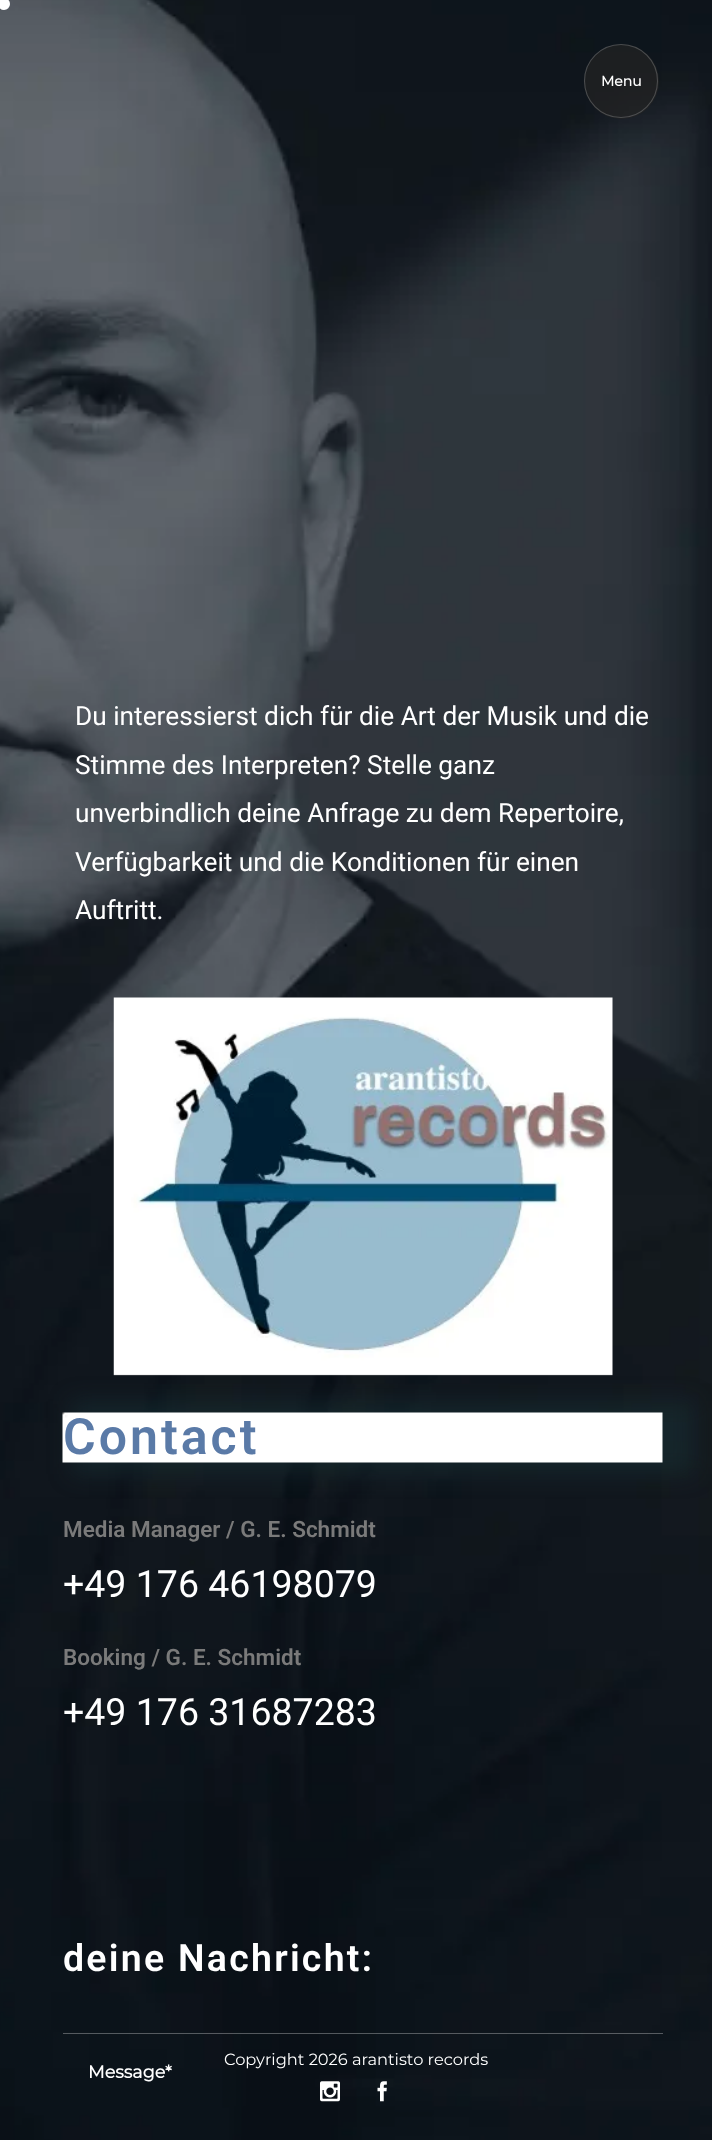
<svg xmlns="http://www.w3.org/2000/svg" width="712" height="2140">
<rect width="100%" height="100%" fill="#fff"/>
<image x="0" y="0" width="712" height="2140" href="media/1.png"/>
<circle cx="4" cy="4" r="6" fill="#fff"/>
<circle cx="621.5" cy="81.5" r="37.5" fill="#242424b3"/>
<circle cx="621" cy="81" r="36.5" fill="none" stroke="#ffffff33" stroke-width="1.1"/>
<text x="601" y="86" style="font-family:Montserrat;font-size:14px;font-weight:bold;fill:#fff">Menu</text>
<text x="75" y="725" style="font-family:Roboto;font-size:26.25px;fill:#fff">Du interessierst dich für die Art der Musik und die</text>
<text x="75" y="774" style="font-family:Roboto;font-size:26.25px;fill:#fff">Stimme des Interpreten? Stelle ganz</text>
<text x="75" y="822" style="font-family:Roboto;font-size:26.25px;fill:#fff">unverbindlich deine Anfrage zu dem Repertoire,</text>
<text x="75" y="871" style="font-family:Roboto;font-size:26.25px;fill:#fff">Verfügbarkeit und die Konditionen für einen</text>
<text x="75" y="919" style="font-family:Roboto;font-size:26.25px;fill:#fff">Auftritt.</text>
<image x="113" y="997" width="500" height="379" href="media/2.png"/>
<rect x="71" y="1401" width="623" height="73" fill="#18313880" filter="blur(11px)"/>
<image x="62" y="1412" width="601" height="51" href="media/3.png"/>
<text x="63" y="1454" style="font-family:Roboto;font-size:50px;font-weight:600;letter-spacing:3px;fill:#5a7aa7">Contact</text>
<text x="63" y="1537" style="font-family:Roboto;font-size:22.5px;font-weight:600;fill:#7a7a7a">Media Manager / G. E. Schmidt</text>
<text x="63" y="1597" style="font-family:Roboto;font-size:37.5px;fill:#fff">+49 176 46198079</text>
<text x="63" y="1665" style="font-family:Roboto;font-size:22.5px;font-weight:600;fill:#7a7a7a">Booking / G. E. Schmidt</text>
<text x="63" y="1725" style="font-family:Roboto;font-size:37.5px;fill:#fff">+49 176 31687283</text>
<text x="63" y="1971" style="font-family:Roboto;font-size:37.5px;font-weight:600;letter-spacing:2.25px;fill:#fff">deine Nachricht:</text>
<rect x="63" y="2033" width="600" height="1" fill="#ffffff4d"/>
<text x="88" y="2078" style="font-family:Montserrat;font-size:17.5px;font-weight:bold;fill:#fff">Message*</text>
<text x="224" y="2065" style="font-family:Montserrat;font-size:16.25px;font-weight:100;fill:#fff">Copyright 2026 arantisto records</text>
<image x="320" y="2081" width="20" height="21" href="media/4.png"/>
<image x="377" y="2081" width="10" height="21" href="media/5.png"/>
</svg>
